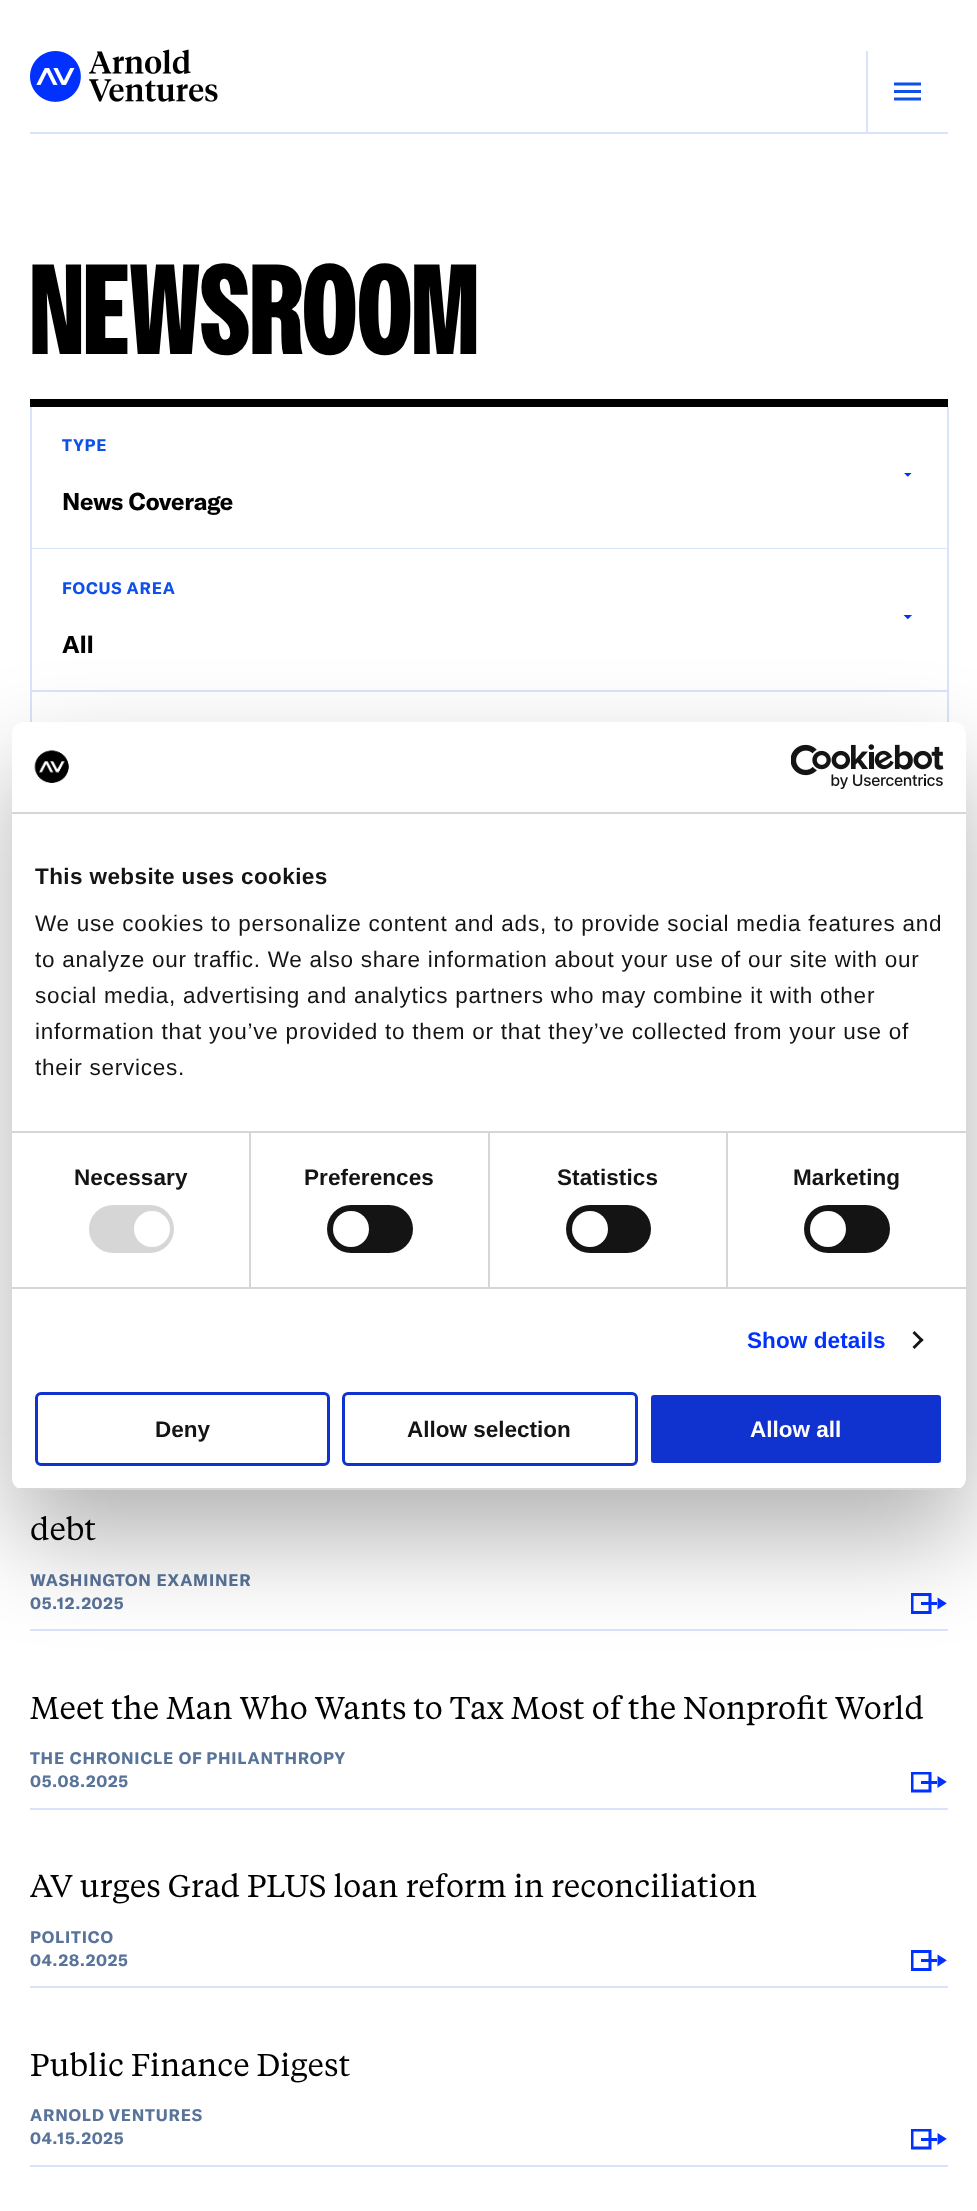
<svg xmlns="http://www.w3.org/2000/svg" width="977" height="2211">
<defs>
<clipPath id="clip1"><rect x="12" y="722" width="954" height="768" rx="12"/></clipPath>
</defs>
<rect width="100%" height="100%" fill="#fff"/>
<rect x="30" y="132" width="918" height="2" fill="#d8e3fc"/>
<image x="30" y="49" width="188" height="53" href="media/1.png"/>
<rect x="866" y="51" width="2" height="83" fill="#d8e3fc"/>
<image x="894" y="82" width="27" height="19" href="media/2.png"/>
<text x="30" y="354" style="font-family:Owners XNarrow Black;font-size:128px;font-weight:900;fill:#000">NEWSROOM</text>
<rect x="30" y="399" width="918" height="8" fill="#000"/>
<rect x="947" y="407" width="2" height="315" fill="#d8e3fc"/>
<rect x="30" y="548" width="918" height="1" fill="#d8e3fc"/>
<rect x="30" y="407" width="2" height="141" fill="#d8e3fc"/>
<text x="62" y="451" style="font-family:GT America;font-size:16.5px;font-weight:bold;letter-spacing:0.8px;fill:#0e50e9">TYPE</text>
<image x="904" y="473" width="8" height="4" href="media/3.png"/>
<text x="62" y="510" style="font-family:GT America;font-size:24px;font-weight:bold;letter-spacing:-0.25px;fill:#000">News Coverage</text>
<rect x="30" y="690" width="918" height="2" fill="#d8e3fc"/>
<rect x="30" y="549" width="2" height="141" fill="#d8e3fc"/>
<text x="62" y="594" style="font-family:GT America;font-size:16.5px;font-weight:bold;letter-spacing:0.8px;fill:#0e50e9">FOCUS AREA</text>
<image x="903" y="615" width="9" height="5" href="media/4.png"/>
<text x="62" y="653" style="font-family:GT America;font-size:24px;font-weight:bold;letter-spacing:-0.25px;fill:#000">All</text>
<rect x="30" y="692" width="2" height="30" fill="#d8e3fc"/>
<text x="30" y="1540" style="font-family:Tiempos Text;font-size:31.4px;fill:#000">debt</text>
<rect x="30" y="1629" width="918" height="2" fill="#d8e3fc"/>
<text x="30" y="1586" style="font-family:GT America;font-size:16.5px;font-weight:bold;letter-spacing:0.8px;fill:#59749a">WASHINGTON EXAMINER</text>
<text x="30" y="1609" style="font-family:GT America;font-size:16.5px;font-weight:bold;letter-spacing:0.8px;fill:#59749a">05.12.2025</text>
<image x="911" y="1593" width="36" height="21" href="media/5.png"/>
<text x="30" y="1719" style="font-family:Tiempos Text;font-size:31.4px;fill:#000">Meet the Man Who Wants to Tax Most of the Nonprofit World</text>
<rect x="30" y="1808" width="918" height="2" fill="#d8e3fc"/>
<text x="30" y="1764" style="font-family:GT America;font-size:16.5px;font-weight:bold;letter-spacing:0.8px;fill:#59749a">THE CHRONICLE OF PHILANTHROPY</text>
<text x="30" y="1787" style="font-family:GT America;font-size:16.5px;font-weight:bold;letter-spacing:0.8px;fill:#59749a">05.08.2025</text>
<image x="911" y="1772" width="36" height="21" href="media/6.png"/>
<text x="30" y="1897" style="font-family:Tiempos Text;font-size:31.4px;fill:#000">AV urges Grad PLUS loan reform in reconciliation</text>
<rect x="30" y="1986" width="918" height="2" fill="#d8e3fc"/>
<text x="30" y="1943" style="font-family:GT America;font-size:16.5px;font-weight:bold;letter-spacing:0.8px;fill:#59749a">POLITICO</text>
<text x="30" y="1966" style="font-family:GT America;font-size:16.5px;font-weight:bold;letter-spacing:0.8px;fill:#59749a">04.28.2025</text>
<image x="911" y="1950" width="36" height="21" href="media/5.png"/>
<text x="30" y="2076" style="font-family:Tiempos Text;font-size:31.4px;fill:#000">Public Finance Digest</text>
<rect x="30" y="2165" width="918" height="2" fill="#d8e3fc"/>
<text x="30" y="2121" style="font-family:GT America;font-size:16.5px;font-weight:bold;letter-spacing:0.8px;fill:#59749a">ARNOLD VENTURES</text>
<text x="30" y="2144" style="font-family:GT America;font-size:16.5px;font-weight:bold;letter-spacing:0.8px;fill:#59749a">04.15.2025</text>
<image x="911" y="2129" width="36" height="21" href="media/6.png"/>
<rect x="12" y="770" width="954" height="768" rx="12" fill="#0000004d" filter="blur(51px)"/>
<rect x="12" y="722" width="954" height="768" rx="12" fill="#fff"/>
<rect x="12" y="812" width="954" height="2" fill="#d6d6d6"/>
<image x="34" y="750" width="35" height="33" href="media/7.png"/>
<image x="791" y="744" width="153" height="45" href="media/8.png"/>
<rect x="12" y="1131" width="954" height="2" fill="#d6d6d6"/>
<text x="35" y="884" style="font-family:Liberation Sans;font-size:22.5px;font-weight:bold;letter-spacing:0.4px;fill:#141414">This website uses cookies</text>
<text x="35" y="931" style="font-family:Liberation Sans;font-size:22.5px;letter-spacing:0.75px;fill:#141414">We use cookies to personalize content and ads, to provide social media features and</text>
<text x="35" y="967" style="font-family:Liberation Sans;font-size:22.5px;letter-spacing:0.75px;fill:#141414">to analyze our traffic. We also share information about your use of our site with our</text>
<text x="35" y="1003" style="font-family:Liberation Sans;font-size:22.5px;letter-spacing:0.75px;fill:#141414">social media, advertising and analytics partners who may combine it with other</text>
<text x="35" y="1039" style="font-family:Liberation Sans;font-size:22.5px;letter-spacing:0.75px;fill:#141414">information that you’ve provided to them or that they’ve collected from your use of</text>
<text x="35" y="1075" style="font-family:Liberation Sans;font-size:22.5px;letter-spacing:0.75px;fill:#141414">their services.</text>
<rect x="12" y="1287" width="954" height="2" fill="#d6d6d6"/>
<rect x="249" y="1133" width="2" height="154" fill="#d6d6d6"/>
<text x="74" y="1185" style="font-family:Liberation Sans;font-size:22.5px;font-weight:bold;letter-spacing:0.1px;fill:#141414">Necessary</text>
<rect x="89" y="1205" width="85" height="48" rx="24" fill="#d6d6d6"/>
<circle cx="152" cy="1229" r="18" fill="#fff"/>
<rect x="488" y="1133" width="2" height="154" fill="#d6d6d6"/>
<text x="304" y="1185" style="font-family:Liberation Sans;font-size:22.5px;font-weight:bold;letter-spacing:0.1px;fill:#141414">Preferences</text>
<rect x="327" y="1205" width="86" height="48" rx="24" fill="#141414"/>
<circle cx="351" cy="1229" r="18" fill="#fff"/>
<rect x="726" y="1133" width="2" height="154" fill="#d6d6d6"/>
<text x="557" y="1185" style="font-family:Liberation Sans;font-size:22.5px;font-weight:bold;letter-spacing:0.1px;fill:#141414">Statistics</text>
<rect x="566" y="1205" width="85" height="48" rx="24" fill="#141414"/>
<circle cx="590" cy="1229" r="18" fill="#fff"/>
<text x="793" y="1185" style="font-family:Liberation Sans;font-size:22.5px;font-weight:bold;letter-spacing:0.1px;fill:#141414">Marketing</text>
<rect x="804" y="1205" width="86" height="48" rx="24" fill="#141414"/>
<circle cx="828" cy="1229" r="18" fill="#fff"/>
<text x="747" y="1348" style="font-family:Liberation Sans;font-size:22.5px;font-weight:bold;letter-spacing:0.1px;fill:#0031ff">Show details</text>
<path d="M914.5 1331l9 9l-2 2l-9-9z" fill="#141414"/>
<path d="M921.5 1338l2 2l-9 9l-2-2z" fill="#141414"/>
<g clip-path="url(#clip1)">
<rect x="12" y="1488" width="954" height="2" fill="#d6d6d6"/>
</g>
<rect x="36.5" y="1393.5" width="292" height="71" rx="4.5" fill="none" stroke="#1032cf" stroke-width="3"/>
<text x="155" y="1437" style="font-family:Liberation Sans;font-size:22.5px;font-weight:bold;fill:#141414">Deny</text>
<rect x="343.5" y="1393.5" width="293" height="71" rx="4.5" fill="none" stroke="#1032cf" stroke-width="3"/>
<text x="407" y="1437" style="font-family:Liberation Sans;font-size:22.5px;font-weight:bold;fill:#141414">Allow selection</text>
<rect x="649.5" y="1393.5" width="293" height="71" rx="4.5" fill="#1032cf" stroke="#fff" stroke-width="3"/>
<text x="750" y="1437" style="font-family:Liberation Sans;font-size:22.5px;font-weight:bold;fill:#fff">Allow all</text>
</svg>
